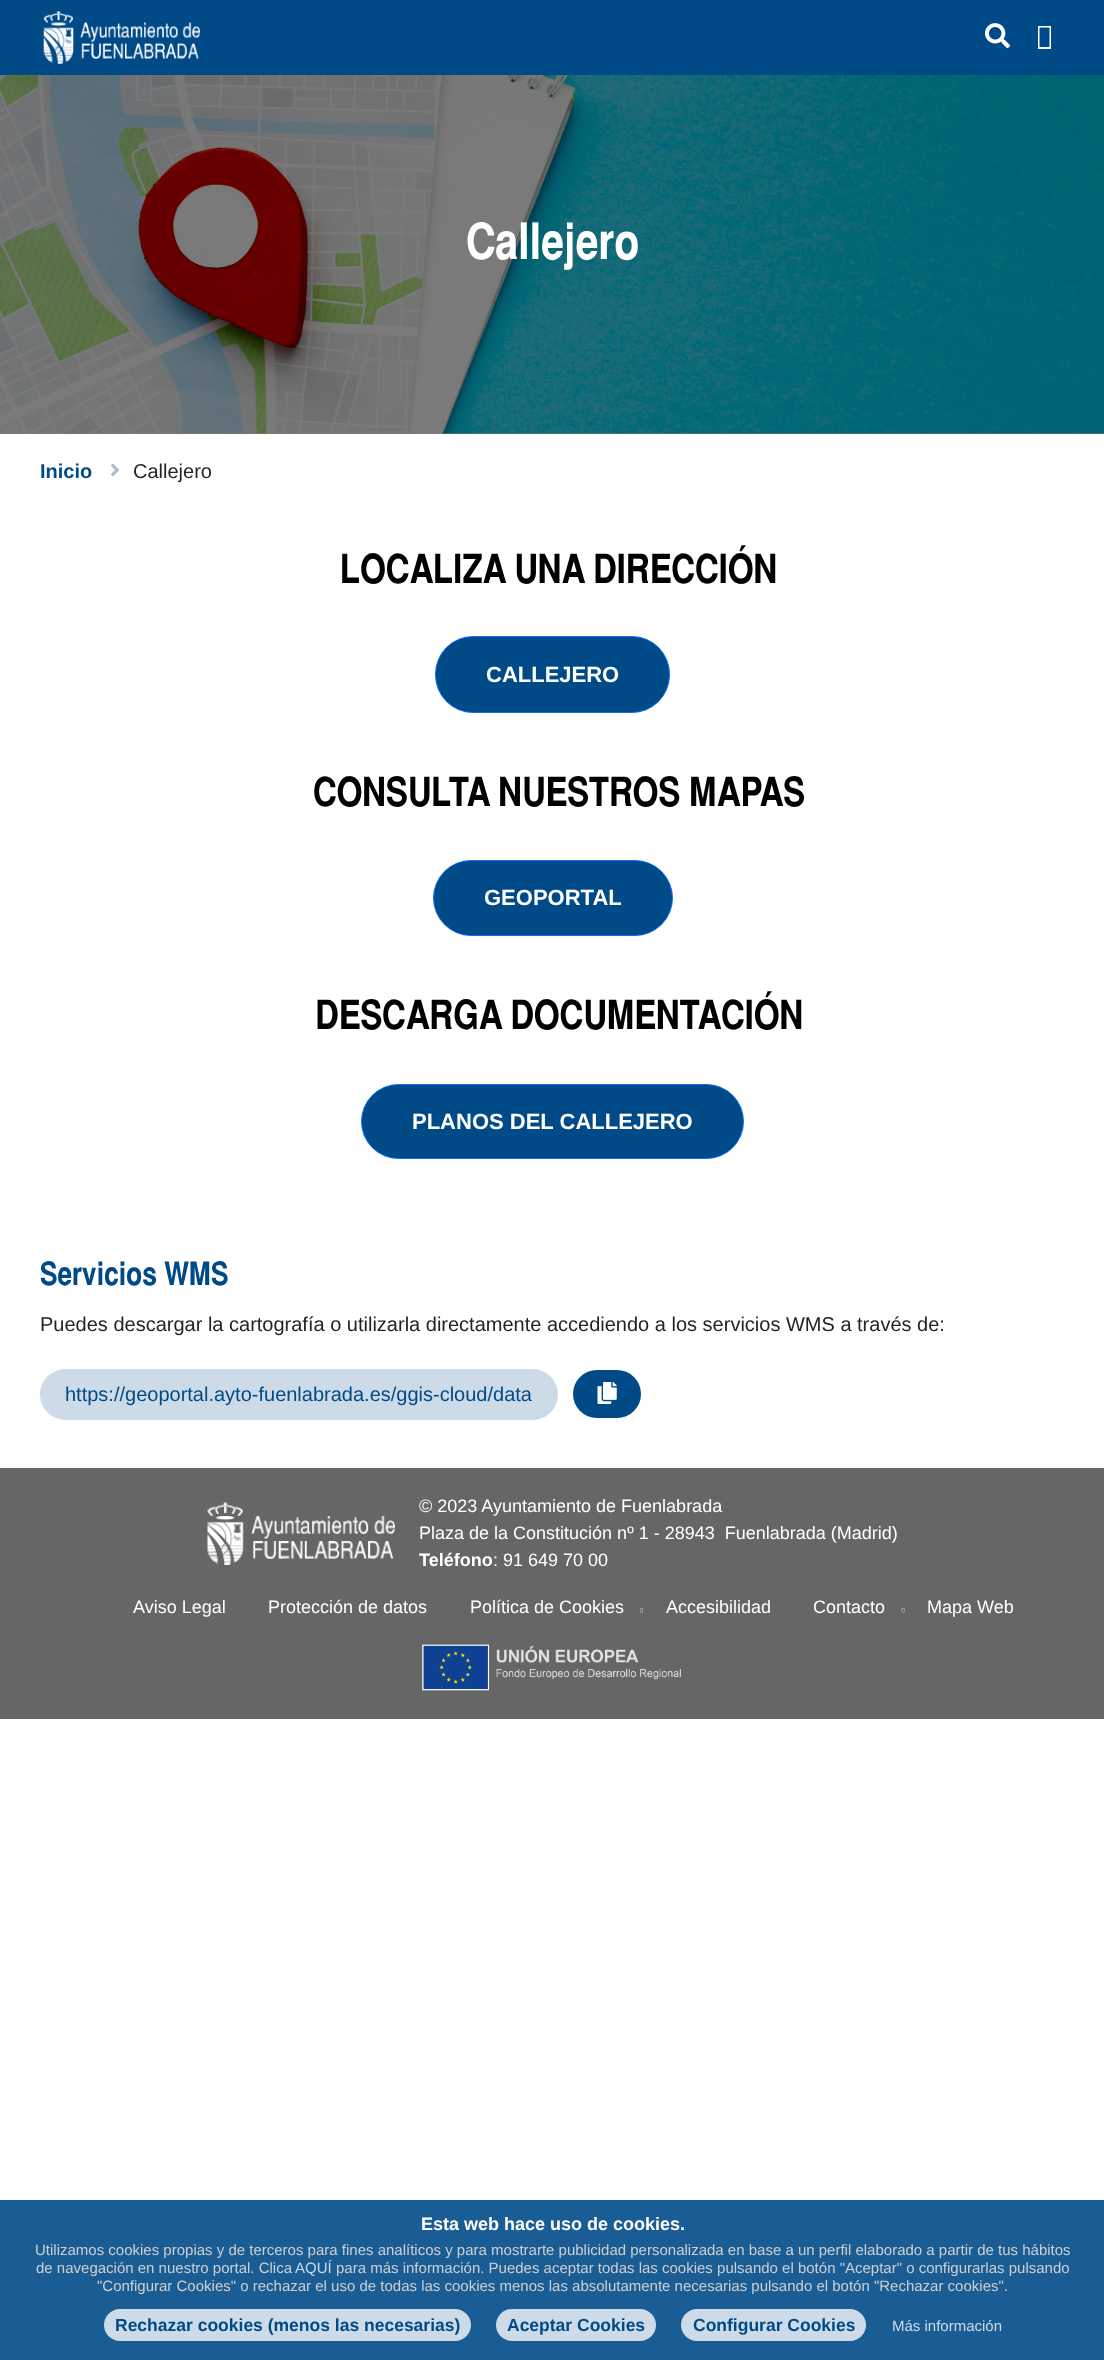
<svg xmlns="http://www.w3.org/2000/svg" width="1104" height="2360">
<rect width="100%" height="100%" fill="#fff"/>
<rect y="433" width="1104" height="1" fill="#808080"/>
<rect width="1104" height="75" fill="#004a88"/>
<image x="43" y="11" width="157" height="53" href="media/1.png"/>
<image x="985" y="23" width="25" height="26" href="media/2.png"/>
<path d="M1038 49v-23h13v23zm1.5-2h10v-19.5h-10z" fill="#fff"/>
<image x="0" y="75" width="1104" height="359" href="media/3.png"/>
<text x="466" y="259" style="font-family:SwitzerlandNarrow;font-size:50px;font-weight:bold;fill:#fff">Callejero</text>
<text x="40" y="478" style="font-family:Liberation Sans;font-size:20px;font-weight:bold;fill:#004a88">Inicio</text>
<image x="111" y="463" width="8" height="14" href="media/4.png"/>
<text x="133" y="478" style="font-family:Liberation Sans;font-size:20px;fill:#212529">Callejero</text>
<text x="340" y="583" style="font-family:SwitzerlandNarrow;font-size:40px;font-weight:bold;fill:#000">LOCALIZA UNA DIRECCIÓN</text>
<rect x="435.5" y="636.5" width="234" height="76" rx="37.5" fill="#004a88" stroke="#0d6efd"/>
<text x="486" y="682" style="font-family:Liberation Sans;font-size:22px;font-weight:bold;fill:#fff">CALLEJERO</text>
<text x="313" y="806" style="font-family:SwitzerlandNarrow;font-size:40px;font-weight:bold;fill:#000">CONSULTA NUESTROS MAPAS</text>
<rect x="433.5" y="860.5" width="239" height="75" rx="37.5" fill="#004a88" stroke="#0d6efd"/>
<text x="484" y="905" style="font-family:Liberation Sans;font-size:22px;font-weight:bold;fill:#fff">GEOPORTAL</text>
<text x="315" y="1029" style="font-family:SwitzerlandNarrow;font-size:40px;font-weight:bold;fill:#000">DESCARGA DOCUMENTACIÓN</text>
<rect x="361.5" y="1084.5" width="382" height="74" rx="37" fill="#004a88" stroke="#0d6efd"/>
<text x="412" y="1129" style="font-family:Liberation Sans;font-size:22px;font-weight:bold;fill:#fff">PLANOS DEL CALLEJERO</text>
<text x="40" y="1285" style="font-family:SwitzerlandNarrow;font-size:32px;font-weight:bold;fill:#004a88">Servicios WMS</text>
<text x="40" y="1331" style="font-family:Liberation Sans;font-size:20px;fill:#212529">Puedes descargar la cartografía o utilizarla directamente accediendo a los servicios WMS a través de:</text>
<rect x="40" y="1369" width="518" height="51" rx="25.5" fill="#ccdbe7"/>
<text x="65" y="1401" style="font-family:Liberation Sans;font-size:20px;fill:#004a88">https://geoportal.ayto-fuenlabrada.es/ggis-cloud/data</text>
<rect x="573" y="1370" width="68" height="48" rx="24" fill="#004a88"/>
<image x="597" y="1382" width="20" height="22" href="media/5.png"/>
<rect y="1468" width="1104" height="251" fill="#666"/>
<image x="207" y="1502" width="188" height="63" href="media/6.png"/>
<text x="419" y="1512" style="font-family:Liberation Sans;font-size:18px;fill:#fff">© 2023 Ayuntamiento de Fuenlabrada</text>
<text x="419" y="1539" style="font-family:Liberation Sans;font-size:18px;fill:#fff" xml:space="preserve">Plaza de la Constitución nº 1 - 28943  Fuenlabrada (Madrid)</text>
<text x="419" y="1566" style="font-family:Liberation Sans;font-size:18px;font-weight:bold;fill:#fff">Teléfono</text>
<text x="493" y="1566" style="font-family:Liberation Sans;font-size:18px;fill:#fff">: 91 649 70 00</text>
<text x="133" y="1613" style="font-family:Liberation Sans;font-size:18px;fill:#fff">Aviso Legal</text>
<text x="268" y="1613" style="font-family:Liberation Sans;font-size:18px;fill:#fff">Protección de datos</text>
<text x="470" y="1613" style="font-family:Liberation Sans;font-size:18px;fill:#fff">Política de Cookies</text>
<image x="640" y="1608" width="4" height="5" href="media/7.png"/>
<text x="666" y="1613" style="font-family:Liberation Sans;font-size:18px;fill:#fff">Accesibilidad</text>
<text x="813" y="1613" style="font-family:Liberation Sans;font-size:18px;fill:#fff">Contacto</text>
<image x="901" y="1608" width="4" height="5" href="media/8.png"/>
<text x="927" y="1613" style="font-family:Liberation Sans;font-size:18px;fill:#fff">Mapa Web</text>
<image x="422" y="1644" width="259" height="47" href="media/9.png"/>
<rect y="2200" width="1104" height="160" fill="#1a5c94"/>
<text x="421" y="2230" style="font-family:Liberation Sans;font-size:18px;font-weight:bold;fill:#fff">Esta web hace uso de cookies.</text>
<text x="35" y="2255" style="font-family:Liberation Sans;font-size:15px;fill:#cfcfcf">Utilizamos cookies propias y de terceros para fines analíticos y para mostrarte publicidad personalizada en base a un perfil elaborado a partir de tus hábitos</text>
<text x="36" y="2273" style="font-family:Liberation Sans;font-size:15px;fill:#cfcfcf">de navegación en nuestro portal. Clica</text>
<text x="295" y="2273" style="font-family:Liberation Sans;font-size:15px;fill:#ccdbe7">AQUÍ</text>
<text x="336" y="2273" style="font-family:Liberation Sans;font-size:15px;fill:#cfcfcf">para más información. Puedes aceptar todas las cookies pulsando el botón "Aceptar" o configurarlas pulsando</text>
<text x="97" y="2291" style="font-family:Liberation Sans;font-size:15px;fill:#cfcfcf">"Configurar Cookies" o rechazar el uso de todas las cookies menos las absolutamente necesarias pulsando el botón "Rechazar cookies".</text>
<rect x="104" y="2309" width="367" height="32" rx="16" fill="#ccdbe7"/>
<text x="115" y="2331" style="font-family:Liberation Sans;font-size:17.5px;font-weight:bold;fill:#004a88">Rechazar cookies (menos las necesarias)</text>
<rect x="496" y="2309" width="160" height="32" rx="16" fill="#ccdbe7"/>
<text x="507" y="2331" style="font-family:Liberation Sans;font-size:17.5px;font-weight:bold;fill:#004a88">Aceptar Cookies</text>
<rect x="681" y="2309" width="185" height="32" rx="16" fill="#ccdbe7"/>
<text x="693" y="2331" style="font-family:Liberation Sans;font-size:17.5px;font-weight:bold;fill:#004a88">Configurar Cookies</text>
<text x="892" y="2331" style="font-family:Liberation Sans;font-size:15px;fill:#ccdbe7">Más información</text>
</svg>
